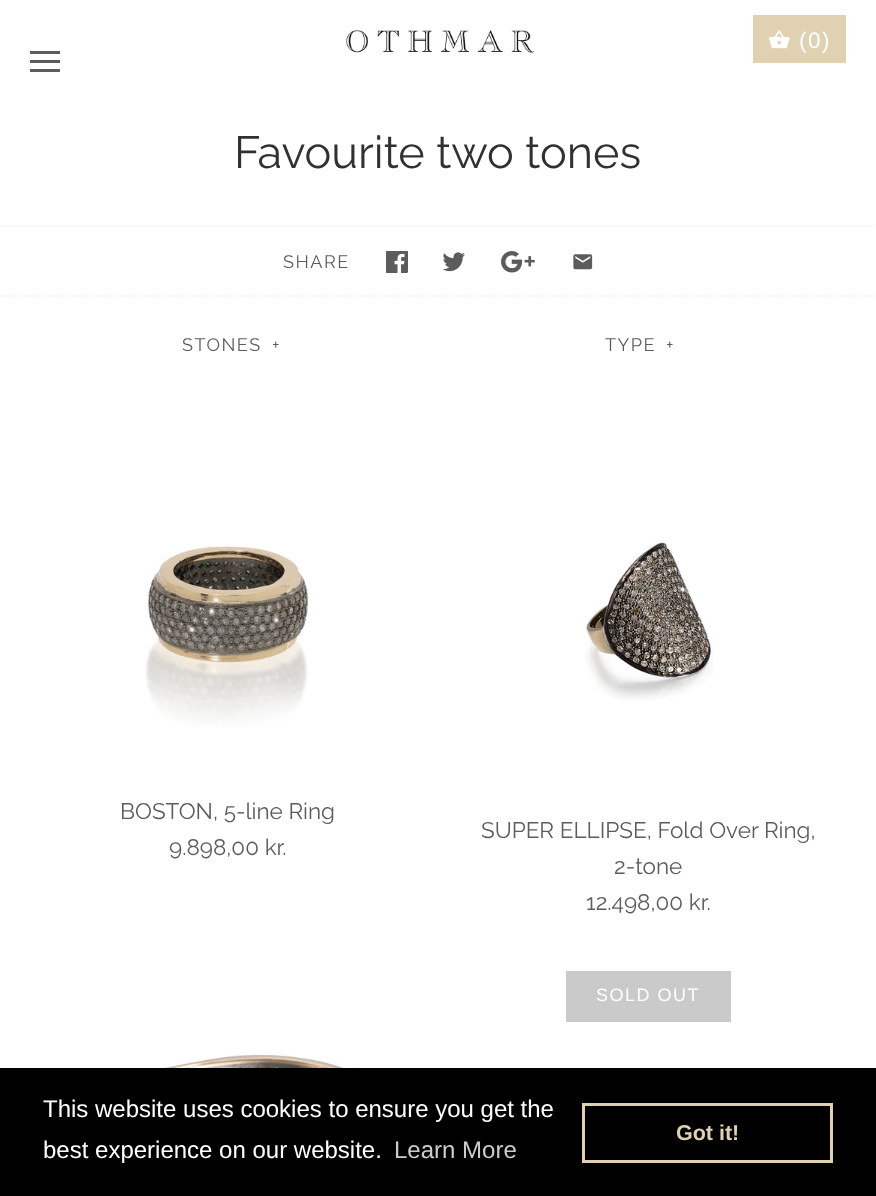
<svg xmlns="http://www.w3.org/2000/svg" width="876" height="1196">
<rect width="100%" height="100%" fill="#fff"/>
<image x="346" y="30" width="188" height="23" href="media/1.png"/>
<rect x="753" y="15" width="93" height="48" fill="#dfd1b1"/>
<image x="769" y="30" width="21" height="19" href="media/2.png"/>
<text x="799" y="48" style="font-family:Liberation Sans;font-size:22.5px;letter-spacing:1.5px;fill:#fff">(0)</text>
<rect x="30" y="51" width="30" height="3" fill="#5c5c5c"/>
<rect x="30" y="60" width="30" height="3" fill="#5c5c5c"/>
<rect x="30" y="69" width="30" height="3" fill="#5c5c5c"/>
<text x="234" y="168" style="font-family:Raleway;font-size:45px;fill:#313131">Favourite two tones</text>
<path d="M0 226h876" fill="none" stroke="#f0f0f0" stroke-width="1.5" stroke-dasharray="1.5 1.5"/>
<path d="M0 296h876" fill="none" stroke="#f0f0f0" stroke-width="1.5" stroke-dasharray="1.5 1.5"/>
<text x="283" y="268" style="font-family:Raleway;font-size:18px;letter-spacing:1.5px;fill:#5c5c5c">SHARE</text>
<image x="386" y="251" width="22" height="22" href="media/3.png"/>
<image x="443" y="252" width="22" height="20" href="media/4.png"/>
<image x="501" y="251" width="34" height="22" href="media/5.png"/>
<image x="573" y="254" width="20" height="16" href="media/6.png"/>
<text x="182" y="351" style="font-family:Raleway;font-size:18px;letter-spacing:1.5px;fill:#5c5c5c">STONES</text>
<text x="272" y="351" style="font-family:Raleway;font-size:18px;letter-spacing:1.5px;fill:#5c5c5c">+</text>
<text x="605" y="351" style="font-family:Raleway;font-size:18px;letter-spacing:1.5px;fill:#5c5c5c">TYPE</text>
<text x="666" y="351" style="font-family:Raleway;font-size:18px;letter-spacing:1.5px;fill:#5c5c5c">+</text>
<image x="145" y="546" width="165" height="181" href="media/7.png"/>
<text x="120" y="819" style="font-family:Raleway;font-size:22.5px;fill:#5c5c5c">BOSTON, 5-line Ring</text>
<text x="169" y="855" style="font-family:Raleway;font-size:22.5px;fill:#5c5c5c">9.898,00 kr.</text>
<image x="585" y="541" width="129" height="159" href="media/8.png"/>
<text x="481" y="838" style="font-family:Raleway;font-size:22.5px;fill:#5c5c5c">SUPER ELLIPSE, Fold Over Ring,</text>
<text x="614" y="874" style="font-family:Raleway;font-size:22.5px;fill:#5c5c5c">2-tone</text>
<text x="586" y="910" style="font-family:Raleway;font-size:22.5px;fill:#5c5c5c">12.498,00 kr.</text>
<rect x="566" y="971" width="165" height="51" fill="#cacaca"/>
<text x="596" y="1001" style="font-family:Liberation Sans;font-size:18px;letter-spacing:1.5px;fill:#fff">SOLD OUT</text>
<image x="69" y="1054" width="328" height="14" href="media/9.png"/>
<rect y="1068" width="876" height="128" fill="#000"/>
<text x="43" y="1117" style="font-family:Liberation Sans;font-size:24px;fill:#fff">This website uses cookies to ensure you get the</text>
<text x="43" y="1158" style="font-family:Liberation Sans;font-size:24px;fill:#fff">best experience on our website.</text>
<text x="394" y="1158" style="font-family:Liberation Sans;font-size:24px;fill:#ccc">Learn More</text>
<rect x="583.5" y="1104.5" width="248" height="57" fill="none" stroke="#dfd1b1" stroke-width="3"/>
<text x="676" y="1140" style="font-family:Liberation Sans;font-size:21.5px;font-weight:bold;fill:#dfd1b1">Got it!</text>
</svg>
